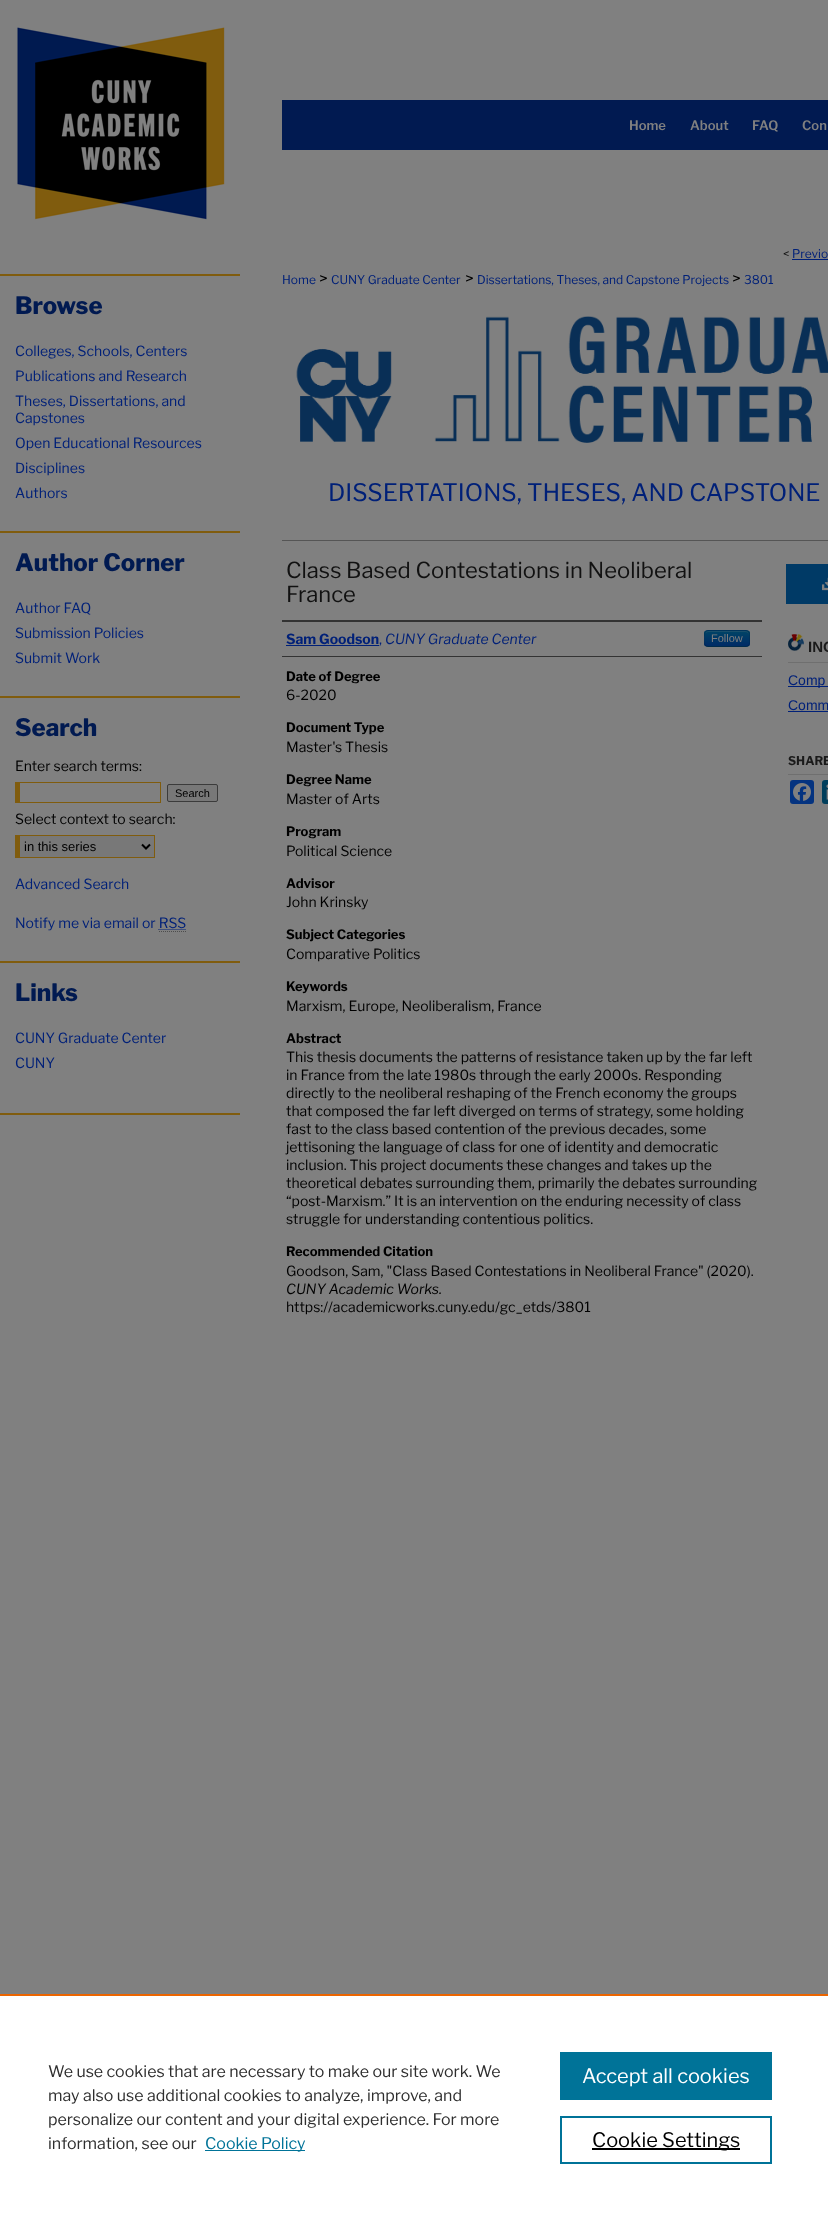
<svg xmlns="http://www.w3.org/2000/svg" width="828" height="2220">
<defs>
<clipPath id="clip1"><rect x="704" y="630" width="46" height="17" rx="4"/></clipPath>
<linearGradient id="g1" gradientUnits="userSpaceOnUse" x1="727" y1="631" x2="727" y2="646"><stop offset="0" stop-color="#046"/><stop offset="1" stop-color="#002b66"/></linearGradient>
</defs>
<rect width="100%" height="100%" fill="#808080"/>
<image x="17" y="27" width="208" height="193" href="media/1.png"/>
<rect x="282" y="100" width="546" height="50" fill="#011a51"/>
<text x="629" y="130" style="font-family:Libre Franklin;font-size:13px;font-weight:600;fill:#808080">Home</text>
<text x="690" y="130" style="font-family:Libre Franklin;font-size:13px;font-weight:600;fill:#808080">About</text>
<text x="752" y="130" style="font-family:Libre Franklin;font-size:13px;font-weight:600;fill:#808080">FAQ</text>
<text x="802" y="130" style="font-family:Libre Franklin;font-size:13px;font-weight:600;fill:#808080">Con</text>
<rect y="1113" width="240" height="2" fill="#805c0e"/>
<rect y="274" width="240" height="2" fill="#805c0e"/>
<text x="15" y="314" style="font-family:Libre Franklin;font-size:24px;font-weight:800;fill:#011a51">Browse</text>
<text x="15" y="356" style="font-family:Libre Franklin;font-size:14px;fill:#002078">Colleges, Schools, Centers</text>
<text x="15" y="381" style="font-family:Libre Franklin;font-size:14px;fill:#002078">Publications and Research</text>
<text x="15" y="406" style="font-family:Libre Franklin;font-size:14px;fill:#002078">Theses, Dissertations, and</text>
<text x="15" y="423" style="font-family:Libre Franklin;font-size:14px;fill:#002078">Capstones</text>
<text x="15" y="448" style="font-family:Libre Franklin;font-size:14px;fill:#002078">Open Educational Resources</text>
<text x="15" y="473" style="font-family:Libre Franklin;font-size:14px;fill:#002078">Disciplines</text>
<text x="15" y="498" style="font-family:Libre Franklin;font-size:14px;fill:#002078">Authors</text>
<rect y="531" width="240" height="2" fill="#805c0e"/>
<text x="15" y="571" style="font-family:Libre Franklin;font-size:24px;font-weight:800;fill:#011a51">Author Corner</text>
<text x="15" y="613" style="font-family:Libre Franklin;font-size:14px;fill:#002078">Author FAQ</text>
<text x="15" y="638" style="font-family:Libre Franklin;font-size:14px;fill:#002078">Submission Policies</text>
<text x="15" y="663" style="font-family:Libre Franklin;font-size:14px;fill:#002078">Submit Work</text>
<rect y="696" width="240" height="2" fill="#805c0e"/>
<text x="15" y="736" style="font-family:Libre Franklin;font-size:24px;font-weight:800;fill:#011a51">Search</text>
<text x="15" y="771" style="font-family:Libre Franklin;font-size:14px;fill:#000">Enter search terms:</text>
<rect x="15" y="782" width="146" height="1" fill="#805c0e"/>
<rect x="160" y="782" width="1" height="21" fill="#805c0e"/>
<rect x="15" y="802" width="146" height="1" fill="#805c0e"/>
<rect x="15" y="782" width="5" height="21" fill="#805c0e"/>
<rect x="167.5" y="784.5" width="50" height="17" rx="1.5" fill="#787878" stroke="#3b3b3b"/>
<text x="175" y="797" style="font-family:Liberation Sans;font-size:11px;fill:#000">Search</text>
<text x="15" y="824" style="font-family:Libre Franklin;font-size:14px;fill:#000">Select context to search:</text>
<rect x="20" y="836" width="134" height="21" fill="#787878"/>
<rect x="15" y="835" width="140" height="1" fill="#805c0e"/>
<rect x="154" y="835" width="1" height="23" fill="#805c0e"/>
<rect x="15" y="857" width="140" height="1" fill="#805c0e"/>
<rect x="15" y="835" width="5" height="23" fill="#805c0e"/>
<path d="M142 844.5l4 4l4-4" fill="none" stroke="#000" stroke-width="2"/>
<text x="24" y="851" style="font-family:Liberation Sans;font-size:13px;fill:#000">in this series</text>
<text x="15" y="889" style="font-family:Libre Franklin;font-size:14px;fill:#002078">Advanced Search</text>
<text x="15" y="928" style="font-family:Libre Franklin;font-size:14px;fill:#002078">Notify me via email or RSS</text>
<path d="M158.5 929.5h27.5" fill="none" stroke="#002078" stroke-dasharray="1 1"/>
<path d="M159 931.5h27" fill="none" stroke="#4d4d4d" stroke-dasharray="1 1"/>
<rect y="961" width="240" height="2" fill="#805c0e"/>
<text x="15" y="1001" style="font-family:Libre Franklin;font-size:24px;font-weight:800;fill:#011a51">Links</text>
<text x="15" y="1043" style="font-family:Libre Franklin;font-size:14px;fill:#002078">CUNY Graduate Center</text>
<text x="15" y="1068" style="font-family:Libre Franklin;font-size:14px;fill:#002078">CUNY</text>
<text x="783" y="258" style="font-family:Libre Franklin;font-size:12px;fill:#111">&lt;</text>
<text x="792" y="258" style="font-family:Libre Franklin;font-size:12px;fill:#002078">Previo</text>
<rect x="792" y="259" width="36" height="1" fill="#002078"/>
<text x="282" y="284" style="font-family:Libre Franklin;font-size:12px;fill:#002078">Home</text>
<text x="319" y="284" style="font-family:Libre Franklin;font-size:16px;fill:#000">&gt;</text>
<text x="331" y="284" style="font-family:Libre Franklin;font-size:12px;fill:#002078">CUNY Graduate Center</text>
<text x="465" y="284" style="font-family:Libre Franklin;font-size:16px;fill:#000">&gt;</text>
<text x="477" y="284" style="font-family:Libre Franklin;font-size:12px;fill:#002078">Dissertations, Theses, and Capstone Projects</text>
<text x="732" y="284" style="font-family:Libre Franklin;font-size:16px;fill:#000">&gt;</text>
<text x="744" y="284" style="font-family:Libre Franklin;font-size:12px;fill:#002078">3801</text>
<image x="296" y="316" width="532" height="127" href="media/2.png"/>
<text x="328" y="501" style="font-family:Libre Franklin;font-size:24px;fill:#002078">DISSERTATIONS, THESES, AND CAPSTONE</text>
<rect x="282" y="540" width="546" height="1" fill="#555"/>
<text x="286" y="578" style="font-family:Libre Franklin;font-size:22px;fill:#111">Class Based Contestations in Neoliberal</text>
<text x="286" y="602" style="font-family:Libre Franklin;font-size:22px;fill:#111">France</text>
<rect x="282" y="620" width="480" height="2" fill="#333"/>
<rect x="282" y="656" width="480" height="1" fill="#333"/>
<text x="286" y="644" style="font-family:Libre Franklin;font-size:14px;font-weight:bold;fill:#002078">Sam Goodson</text>
<rect x="286" y="645" width="93" height="1" fill="#002078"/>
<text x="379" y="644" style="font-family:Libre Franklin;font-size:14px;fill:#002078">,</text>
<text x="385" y="644" style="font-family:Libre Franklin;font-size:14px;font-style:italic;fill:#002078">CUNY Graduate Center</text>
<rect x="704" y="630" width="46" height="17" rx="4" fill="#003a66"/>
<g clip-path="url(#clip1)">
<rect x="704" y="631" width="46" height="15" fill="url(#g1)"/>
</g>
<path d="M708 632h33c7 0 8 0 8 6v6v-7c0-7-2-6-9-6h-26c-7 0-9-1-9 6v8c0-3-2-13 3-13z" fill="#80808033"/>
<path d="M748.5 645.5c-.5 .5-1.5 1-2.5 1h-38c-1 0-2-.5-2.5-1" fill="none" stroke="#00000040"/>
<path d="M705.5 645.5c-1.5-2-1-5-1-7c0-9 .5-8 10-8h25c9.5 0 10-1 10 8c0 2 .5 5-1 7" fill="none" stroke="#0000001a"/>
<text x="711" y="642" style="font-family:Liberation Sans;font-size:11px;fill:#808080">Follow</text>
<text x="286" y="681" style="font-family:Libre Franklin;font-size:13px;font-weight:bold;fill:#000">Date of Degree</text>
<text x="286" y="700" style="font-family:Libre Franklin;font-size:14px;fill:#000">6-2020</text>
<text x="286" y="732" style="font-family:Libre Franklin;font-size:13px;font-weight:bold;fill:#000">Document Type</text>
<text x="286" y="752" style="font-family:Libre Franklin;font-size:14px;fill:#000">Master's Thesis</text>
<text x="286" y="784" style="font-family:Libre Franklin;font-size:13px;font-weight:bold;fill:#000">Degree Name</text>
<text x="286" y="804" style="font-family:Libre Franklin;font-size:14px;fill:#000">Master of Arts</text>
<text x="286" y="836" style="font-family:Libre Franklin;font-size:13px;font-weight:bold;fill:#000">Program</text>
<text x="286" y="856" style="font-family:Libre Franklin;font-size:14px;fill:#000">Political Science</text>
<text x="286" y="888" style="font-family:Libre Franklin;font-size:13px;font-weight:bold;fill:#000">Advisor</text>
<text x="286" y="907" style="font-family:Libre Franklin;font-size:14px;fill:#000">John Krinsky</text>
<text x="286" y="939" style="font-family:Libre Franklin;font-size:13px;font-weight:bold;fill:#000">Subject Categories</text>
<text x="286" y="959" style="font-family:Libre Franklin;font-size:14px;fill:#000">Comparative Politics</text>
<text x="286" y="991" style="font-family:Libre Franklin;font-size:13px;font-weight:bold;fill:#000">Keywords</text>
<text x="286" y="1011" style="font-family:Libre Franklin;font-size:14px;fill:#000">Marxism, Europe, Neoliberalism, France</text>
<text x="286" y="1043" style="font-family:Libre Franklin;font-size:13px;font-weight:bold;fill:#000">Abstract</text>
<text x="286" y="1062" style="font-family:Libre Franklin;font-size:14px;fill:#000">This thesis documents the patterns of resistance taken up by the far left</text>
<text x="286" y="1080" style="font-family:Libre Franklin;font-size:14px;fill:#000">in France from the late 1980s through the early 2000s. Responding</text>
<text x="286" y="1098" style="font-family:Libre Franklin;font-size:14px;fill:#000">directly to the neoliberal reshaping of the French economy the groups</text>
<text x="286" y="1116" style="font-family:Libre Franklin;font-size:14px;fill:#000">that composed the far left diverged on terms of strategy, some holding</text>
<text x="286" y="1134" style="font-family:Libre Franklin;font-size:14px;fill:#000">fast to the class based contention of the previous decades, some</text>
<text x="286" y="1152" style="font-family:Libre Franklin;font-size:14px;fill:#000">jettisoning the language of class for one of identity and democratic</text>
<text x="286" y="1170" style="font-family:Libre Franklin;font-size:14px;fill:#000">inclusion. This project documents these changes and takes up the</text>
<text x="286" y="1188" style="font-family:Libre Franklin;font-size:14px;fill:#000">theoretical debates surrounding them, primarily the debates surrounding</text>
<text x="286" y="1206" style="font-family:Libre Franklin;font-size:14px;fill:#000">“post-Marxism.” It is an intervention on the enduring necessity of class</text>
<text x="286" y="1224" style="font-family:Libre Franklin;font-size:14px;fill:#000">struggle for understanding contentious politics.</text>
<text x="286" y="1256" style="font-family:Libre Franklin;font-size:13px;font-weight:bold;fill:#000">Recommended Citation</text>
<text x="286" y="1276" style="font-family:Libre Franklin;font-size:14px;fill:#000">Goodson, Sam, "Class Based Contestations in Neoliberal France" (2020).</text>
<text x="286" y="1294" style="font-family:Libre Franklin;font-size:14px;font-style:italic;fill:#000">CUNY Academic Works.</text>
<text x="286" y="1312" style="font-family:Libre Franklin;font-size:14px;fill:#000">https://academicworks.cuny.edu/gc_etds/3801</text>
<rect x="786" y="564" width="42" height="40" fill="#003a66"/>
<image x="822" y="577" width="6" height="14" href="media/3.png"/>
<image x="788" y="634" width="16" height="17" href="media/4.png"/>
<rect x="788" y="662" width="40" height="1" fill="#6f6f6f"/>
<text x="808" y="652" style="font-family:Liberation Sans;font-size:15px;font-weight:bold;fill:#1a1a1a">INC</text>
<rect x="788" y="686" width="40" height="1" fill="#002078"/>
<text x="788" y="685" style="font-family:Liberation Sans;font-size:14px;fill:#002078">Comp</text>
<text x="788" y="710" style="font-family:Liberation Sans;font-size:14px;fill:#002078">Comm</text>
<rect x="788" y="711" width="40" height="1" fill="#002078"/>
<rect x="788" y="774" width="40" height="1" fill="#6f6f6f"/>
<text x="788" y="765" style="font-family:Libre Franklin;font-size:12px;font-weight:bold;fill:#1a1a1a">SHARE</text>
<rect x="790" y="780" width="24" height="24" rx="3" fill="#043380"/>
<image x="793" y="783" width="18" height="18" href="media/5.png"/>
<rect x="822" y="780" width="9" height="24" rx="3" fill="#003e5b"/>
<image x="826" y="784" width="2" height="16" href="media/6.png"/>
<rect y="1996" width="828" height="224" fill="#fff"/>
<rect y="1994" width="828" height="2" fill="#eb6500"/>
<text x="48" y="2077" style="font-family:Libre Franklin;font-size:16px;fill:#2e2e2e">We use cookies that are necessary to make our site work. We</text>
<text x="48" y="2101" style="font-family:Libre Franklin;font-size:16px;fill:#2e2e2e">may also use additional cookies to analyze, improve, and</text>
<text x="48" y="2125" style="font-family:Libre Franklin;font-size:16px;fill:#2e2e2e">personalize our content and your digital experience. For more</text>
<text x="48" y="2149" style="font-family:Libre Franklin;font-size:16px;fill:#2e2e2e">information, see our</text>
<rect x="205" y="2150" width="100" height="1" fill="#007398"/>
<text x="205" y="2149" style="font-family:Libre Franklin;font-size:16px;fill:#007398">Cookie Policy</text>
<rect x="560" y="2052" width="212" height="48" fill="#007398"/>
<text x="582" y="2083" style="font-family:Libre Franklin;font-size:20px;fill:#fff">Accept all cookies</text>
<rect x="561" y="2117" width="210" height="46" fill="none" stroke="#007398" stroke-width="2"/>
<rect x="592" y="2148" width="148" height="2" fill="#000"/>
<text x="592" y="2147" style="font-family:Libre Franklin;font-size:20px;fill:#000">Cookie Settings</text>
</svg>
